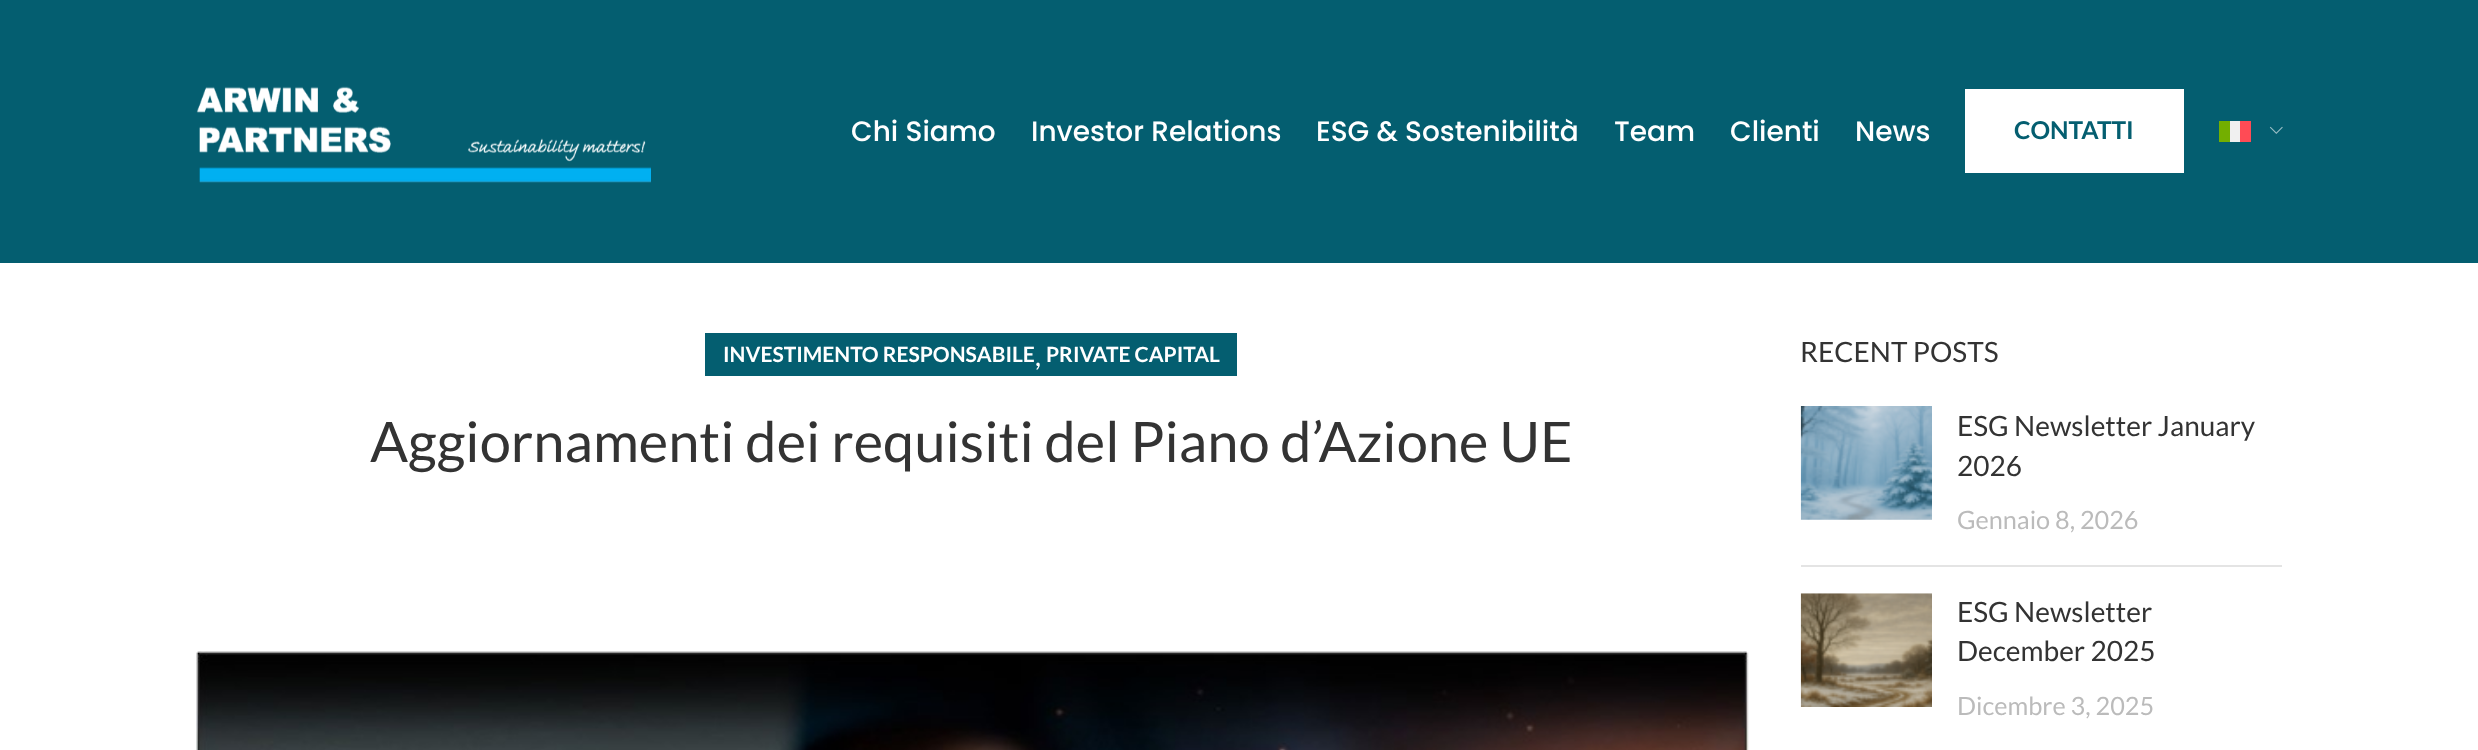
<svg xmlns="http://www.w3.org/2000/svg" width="2478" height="750">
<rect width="100%" height="100%" fill="#fff"/>
<rect width="2478" height="263" fill="#045e70"/>
<image x="196" y="86" width="455" height="97" href="media/1.png"/>
<text x="851" y="141" style="font-family:Poppins;font-size:28px;font-weight:500;fill:#fff">Chi Siamo</text>
<text x="1031" y="141" style="font-family:Poppins;font-size:28px;font-weight:500;fill:#fff">Investor Relations</text>
<text x="1316" y="141" style="font-family:Poppins;font-size:28px;font-weight:500;fill:#fff">ESG &amp; Sostenibilità</text>
<text x="1614" y="141" style="font-family:Poppins;font-size:28px;font-weight:500;fill:#fff">Team</text>
<text x="1730" y="141" style="font-family:Poppins;font-size:28px;font-weight:500;fill:#fff">Clienti</text>
<text x="1855" y="141" style="font-family:Poppins;font-size:28px;font-weight:500;fill:#fff">News</text>
<rect x="1965" y="89" width="219" height="84" fill="#fff"/>
<text x="2014" y="139" style="font-family:Lato;font-size:24.5px;font-weight:bold;fill:#045e70">CONTATTI</text>
<rect x="2230" y="121" width="10" height="21" fill="#f0f0f0"/>
<rect x="2240" y="121" width="11" height="21" fill="#ff4b55"/>
<rect x="2219" y="121" width="11" height="21" fill="#73af00"/>
<image x="2269" y="126" width="14" height="8" href="media/2.png"/>
<rect x="705" y="333" width="532" height="43" fill="#045e70"/>
<text x="723" y="362" style="font-family:Lato;font-size:21px;font-weight:bold;fill:#fff">INVESTIMENTO RESPONSABILE</text>
<text x="1046" y="362" style="font-family:Lato;font-size:21px;font-weight:bold;fill:#fff">PRIVATE CAPITAL</text>
<text x="1035" y="366" style="font-family:Lato;font-size:28px;fill:#fff">,</text>
<text x="370" y="462" style="font-family:Lato;font-size:56px;fill:#333">Aggiornamenti dei requisiti del Piano d’Azione UE</text>
<image x="196" y="651" width="1553" height="99" href="media/3.png"/>
<text x="1800" y="362" style="font-family:Lato;font-size:28px;fill:#333">RECENT POSTS</text>
<rect x="1801" y="565" width="481" height="2" fill="#e4e4e4"/>
<image x="1800" y="406" width="132" height="114" href="media/4.png"/>
<text x="1957" y="436" style="font-family:Lato;font-size:28px;fill:#333">ESG Newsletter January</text>
<text x="1957" y="476" style="font-family:Lato;font-size:28px;fill:#333">2026</text>
<text x="1957" y="529" style="font-family:Lato;font-size:25.25px;fill:#bbb">Gennaio 8, 2026</text>
<image x="1800" y="593" width="132" height="114" href="media/5.png"/>
<text x="1957" y="622" style="font-family:Lato;font-size:28px;fill:#333">ESG Newsletter</text>
<text x="1957" y="661" style="font-family:Lato;font-size:28px;fill:#333">December 2025</text>
<text x="1957" y="715" style="font-family:Lato;font-size:25.25px;fill:#bbb">Dicembre 3, 2025</text>
</svg>
